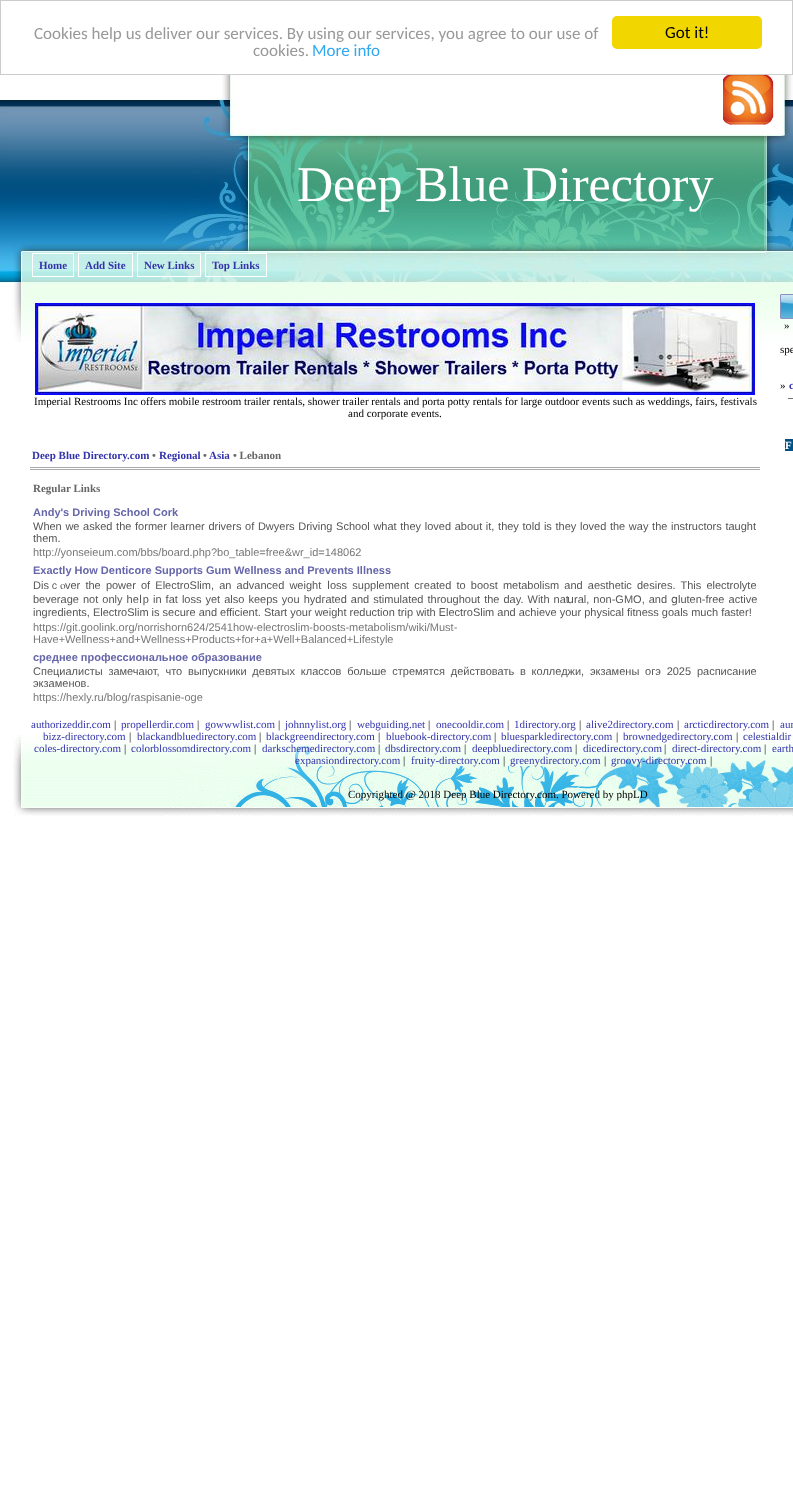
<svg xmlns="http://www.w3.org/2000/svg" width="793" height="1511">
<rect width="100%" height="100%" fill="#fff"/>
<rect x="0.5" y="0.5" width="792" height="74" fill="none" stroke="#ccc"/>
<text x="34" y="39" style="font-family:Carlito;font-size:17px;fill:#999">Cookies help us deliver our services. By using our services, you agree to our use of</text>
<text x="253" y="56" style="font-family:Carlito;font-size:17px;fill:#999">cookies.</text>
<text x="312" y="56" style="font-family:Carlito;font-size:17px;fill:#31a8f0">More info</text>
<rect x="612" y="16" width="150" height="33" rx="5" fill="#f1d600"/>
<text x="665" y="38" style="font-family:Carlito;font-size:17px;fill:#000">Got it!</text>
<image x="0" y="75" width="793" height="267" href="media/1.png"/>
<image x="13" y="735" width="780" height="81" href="media/2.png"/>
<image x="723" y="75" width="51" height="50" href="media/3.png"/>
<text x="297" y="201" style="font-family:Liberation Serif;font-size:50px;fill:#fff">Deep Blue Directory</text>
<rect x="32.5" y="253.5" width="41" height="23" fill="none" stroke="#fff"/>
<text x="39" y="269" style="font-family:Liberation Serif;font-size:11px;font-weight:bold;fill:#33a">Home</text>
<rect x="78.5" y="253.5" width="54" height="23" fill="none" stroke="#fff"/>
<text x="85" y="269" style="font-family:Liberation Serif;font-size:11px;font-weight:bold;fill:#33a">Add Site</text>
<rect x="137.5" y="253.5" width="63" height="23" fill="none" stroke="#fff"/>
<text x="144" y="269" style="font-family:Liberation Serif;font-size:11px;font-weight:bold;fill:#33a">New Links</text>
<rect x="205.5" y="253.5" width="61" height="23" fill="none" stroke="#fff"/>
<text x="212" y="269" style="font-family:Liberation Serif;font-size:11px;font-weight:bold;fill:#33a">Top Links</text>
<image x="35" y="303" width="720" height="92" href="media/4.png"/>
<text x="34" y="405" style="font-family:Liberation Serif;font-size:11px;fill:#000">Imperial Restrooms Inc offers mobile restroom trailer rentals, shower trailer rentals and porta potty rentals for large outdoor events such as weddings, fairs, festivals</text>
<text x="348" y="417" style="font-family:Liberation Serif;font-size:11px;fill:#000">and corporate events.</text>
<rect x="30" y="467" width="730" height="1" fill="#aaa"/>
<rect x="30" y="469" width="730" height="1" fill="#aaa"/>
<text x="32" y="459" style="font-family:Liberation Serif;font-size:11px;font-weight:bold;fill:#33a">Deep Blue Directory.com</text>
<text x="152" y="459" style="font-family:Liberation Serif;font-size:11px;font-weight:bold;fill:#666">•</text>
<text x="159" y="459" style="font-family:Liberation Serif;font-size:11px;font-weight:bold;fill:#33a">Regional</text>
<text x="203" y="459" style="font-family:Liberation Serif;font-size:11px;font-weight:bold;fill:#666">•</text>
<text x="209" y="459" style="font-family:Liberation Serif;font-size:11px;font-weight:bold;fill:#33a">Asia</text>
<text x="233" y="459" style="font-family:Liberation Serif;font-size:11px;font-weight:bold;fill:#666">• Lebanon</text>
<text x="33" y="492" style="font-family:Liberation Serif;font-size:11px;font-weight:bold;fill:#666">Regular Links</text>
<text x="33" y="516" style="font-family:Liberation Sans;font-size:11px;font-weight:bold;fill:#66a">Andy's Driving School Cork</text>
<text x="33" y="530" word-spacing="0.6" style="font-family:Liberation Sans;font-size:11px;fill:#555">When we asked the former learner drivers of Dwyers Driving School what they loved about it, they told is they loved the way the instructors taught</text>
<text x="33" y="542" style="font-family:Liberation Sans;font-size:11px;fill:#555">them.</text>
<text x="33" y="556" style="font-family:Liberation Sans;font-size:11px;fill:#777">http://yonseieum.com/bbs/board.php?bo_table=free&amp;wr_id=148062</text>
<text x="33" y="574" style="font-family:Liberation Sans;font-size:11px;font-weight:bold;fill:#66a">Exactly How Denticore Supports Gum Wellness and Prevents Illness</text>
<text x="33" y="589" style="font-family:Liberation Sans;font-size:11px;fill:#555">Dіs</text>
<text x="49" y="589" style="font-family:WenQuanYi Zen Hei;font-size:11px;font-weight:500;fill:#555">ｃ</text>
<text x="60" y="589" style="font-family:FreeSerif;font-size:11px;fill:#555">ⲟ</text>
<text x="65" y="589" word-spacing="2.1" style="font-family:Liberation Sans;font-size:11px;fill:#555">ver the power of ElectroSlim, an advanced weight</text>
<text x="327" y="589" style="font-family:DejaVu Sans;font-size:11px;fill:#555">ⅼ</text>
<text x="330" y="589" word-spacing="2.1" style="font-family:Liberation Sans;font-size:11px;fill:#555">oss supplement cгeated to boost metabolism and aesthetic desires. This electrolyte</text>
<text x="33" y="603" word-spacing="1" style="font-family:Liberation Sans;font-size:11px;fill:#555">beverage not only he p in fat loss yet also keeps you hydгated and stimulated throughout the dаy. Witһ nat</text>
<text x="139" y="603" style="font-family:DejaVu Sans;font-size:11px;fill:#555">ⅼ</text>
<text x="567" y="603" style="font-family:DejaVu Sans;font-size:11px;fill:#555">ս</text>
<text x="574" y="603" word-spacing="1" style="font-family:Liberation Sans;font-size:11px;fill:#555">ral, non-GMO, and</text>
<text x="671" y="603" style="font-family:DejaVu Sans;font-size:11px;fill:#555">ց</text>
<text x="678" y="603" word-spacing="1" style="font-family:Liberation Sans;font-size:11px;fill:#555">lutеn-free active</text>
<text x="33" y="616" style="font-family:Liberation Sans;font-size:11px;fill:#555">ingredients, ElectroSlim is secure and efficiеnt. Start your weight reduction trip with</text>
<text x="439" y="616" style="font-family:FreeSans;font-size:11px;fill:#555">Ꭼ</text>
<text x="446" y="616" style="font-family:Liberation Sans;font-size:11px;fill:#555">lectroSlim and achieve your physical fitness goals much faster!</text>
<text x="33" y="631" style="font-family:Liberation Sans;font-size:11px;fill:#777">https://git.goolink.org/norrishorn624/2541how-electroslim-boosts-metabolism/wiki/Must-</text>
<text x="33" y="643" style="font-family:Liberation Sans;font-size:11px;fill:#777">Have+Wellness+and+Wellness+Products+for+a+Well+Balanced+Lifestyle</text>
<text x="33" y="661" style="font-family:Liberation Sans;font-size:11px;font-weight:bold;fill:#66a">среднее профессиональное образование</text>
<text x="33" y="675" word-spacing="2.75" style="font-family:Liberation Sans;font-size:11px;fill:#555">Специалисты замечают, что выпускники девятых классов больше стремятся действовать в колледжи, экзамены огэ 2025 расписание</text>
<text x="33" y="687" style="font-family:Liberation Sans;font-size:11px;fill:#555">экзаменов.</text>
<text x="33" y="701" style="font-family:Liberation Sans;font-size:11px;fill:#777">https://hexly.ru/blog/raspisanie-oge</text>
<image x="780" y="294" width="13" height="25" href="media/5.png"/>
<text x="784" y="329" style="font-family:Liberation Serif;font-size:11px;fill:#000">»</text>
<text x="780" y="353" style="font-family:Liberation Serif;font-size:11px;fill:#000">spe</text>
<text x="780" y="389" style="font-family:Liberation Serif;font-size:11px;fill:#000">»</text>
<text x="789" y="389" style="font-family:Liberation Serif;font-size:11px;font-weight:bold;fill:#33a">c</text>
<text x="788" y="401" style="font-family:Liberation Serif;font-size:11px;fill:#000">–</text>
<rect x="785" y="439" width="8" height="12" fill="#005083"/>
<text x="785" y="449" style="font-family:Liberation Serif;font-size:11px;font-weight:bold;fill:#fff">F</text>
<text x="31" y="728" style="font-family:Liberation Serif;font-size:11px;fill:#33a">authorizeddir.com</text>
<text x="114" y="728" style="font-family:Liberation Serif;font-size:11px;fill:#000">|</text>
<text x="121" y="728" style="font-family:Liberation Serif;font-size:11px;fill:#33a">propellerdir.com</text>
<text x="197" y="728" style="font-family:Liberation Serif;font-size:11px;fill:#000">|</text>
<text x="205" y="728" style="font-family:Liberation Serif;font-size:11px;fill:#33a">gowwwlist.com</text>
<text x="278" y="728" style="font-family:Liberation Serif;font-size:11px;fill:#000">|</text>
<text x="285" y="728" style="font-family:Liberation Serif;font-size:11px;fill:#33a">johnnylist.org</text>
<text x="349" y="728" style="font-family:Liberation Serif;font-size:11px;fill:#000">|</text>
<text x="357" y="728" style="font-family:Liberation Serif;font-size:11px;fill:#33a">webguiding.net</text>
<text x="428" y="728" style="font-family:Liberation Serif;font-size:11px;fill:#000">|</text>
<text x="436" y="728" style="font-family:Liberation Serif;font-size:11px;fill:#33a">onecooldir.com</text>
<text x="507" y="728" style="font-family:Liberation Serif;font-size:11px;fill:#000">|</text>
<text x="514" y="728" style="font-family:Liberation Serif;font-size:11px;fill:#33a">1directory.org</text>
<text x="579" y="728" style="font-family:Liberation Serif;font-size:11px;fill:#000">|</text>
<text x="586" y="728" style="font-family:Liberation Serif;font-size:11px;fill:#33a">alive2directory.com</text>
<text x="677" y="728" style="font-family:Liberation Serif;font-size:11px;fill:#000">|</text>
<text x="684" y="728" style="font-family:Liberation Serif;font-size:11px;fill:#33a">arcticdirectory.com</text>
<text x="772" y="728" style="font-family:Liberation Serif;font-size:11px;fill:#000">|</text>
<text x="780" y="728" style="font-family:Liberation Serif;font-size:11px;fill:#33a">aur</text>
<text x="43" y="740" style="font-family:Liberation Serif;font-size:11px;fill:#33a">bizz-directory.com</text>
<text x="129" y="740" style="font-family:Liberation Serif;font-size:11px;fill:#000">|</text>
<text x="137" y="740" style="font-family:Liberation Serif;font-size:11px;fill:#33a">blackandbluedirectory.com</text>
<text x="259" y="740" style="font-family:Liberation Serif;font-size:11px;fill:#000">|</text>
<text x="266" y="740" style="font-family:Liberation Serif;font-size:11px;fill:#33a">blackgreendirectory.com</text>
<text x="378" y="740" style="font-family:Liberation Serif;font-size:11px;fill:#000">|</text>
<text x="386" y="740" style="font-family:Liberation Serif;font-size:11px;fill:#33a">bluebook-directory.com</text>
<text x="494" y="740" style="font-family:Liberation Serif;font-size:11px;fill:#000">|</text>
<text x="501" y="740" style="font-family:Liberation Serif;font-size:11px;fill:#33a">bluesparkledirectory.com</text>
<text x="616" y="740" style="font-family:Liberation Serif;font-size:11px;fill:#000">|</text>
<text x="623" y="740" style="font-family:Liberation Serif;font-size:11px;fill:#33a">brownedgedirectory.com</text>
<text x="736" y="740" style="font-family:Liberation Serif;font-size:11px;fill:#000">|</text>
<text x="743" y="740" style="font-family:Liberation Serif;font-size:11px;fill:#33a">celestialdir</text>
<text x="34" y="752" style="font-family:Liberation Serif;font-size:11px;fill:#33a">coles-directory.com</text>
<text x="124" y="752" style="font-family:Liberation Serif;font-size:11px;fill:#000">|</text>
<text x="131" y="752" style="font-family:Liberation Serif;font-size:11px;fill:#33a">colorblossomdirectory.com</text>
<text x="254" y="752" style="font-family:Liberation Serif;font-size:11px;fill:#000">|</text>
<text x="262" y="752" style="font-family:Liberation Serif;font-size:11px;fill:#33a">darkschemedirectory.com</text>
<text x="378" y="752" style="font-family:Liberation Serif;font-size:11px;fill:#000">|</text>
<text x="385" y="752" style="font-family:Liberation Serif;font-size:11px;fill:#33a">dbsdirectory.com</text>
<text x="464" y="752" style="font-family:Liberation Serif;font-size:11px;fill:#000">|</text>
<text x="472" y="752" style="font-family:Liberation Serif;font-size:11px;fill:#33a">deepbluedirectory.com</text>
<text x="575" y="752" style="font-family:Liberation Serif;font-size:11px;fill:#000">|</text>
<text x="583" y="752" style="font-family:Liberation Serif;font-size:11px;fill:#33a">dicedirectory.com</text>
<text x="664" y="752" style="font-family:Liberation Serif;font-size:11px;fill:#000">|</text>
<text x="672" y="752" style="font-family:Liberation Serif;font-size:11px;fill:#33a">direct-directory.com</text>
<text x="764" y="752" style="font-family:Liberation Serif;font-size:11px;fill:#000">|</text>
<text x="772" y="752" style="font-family:Liberation Serif;font-size:11px;fill:#33a">earth</text>
<text x="295" y="764" style="font-family:Liberation Serif;font-size:11px;fill:#33a">expansiondirectory.com</text>
<text x="403" y="764" style="font-family:Liberation Serif;font-size:11px;fill:#000">|</text>
<text x="411" y="764" style="font-family:Liberation Serif;font-size:11px;fill:#33a">fruity-directory.com</text>
<text x="503" y="764" style="font-family:Liberation Serif;font-size:11px;fill:#000">|</text>
<text x="510" y="764" style="font-family:Liberation Serif;font-size:11px;fill:#33a">greenydirectory.com</text>
<text x="604" y="764" style="font-family:Liberation Serif;font-size:11px;fill:#000">|</text>
<text x="611" y="764" style="font-family:Liberation Serif;font-size:11px;fill:#33a">groovy-directory.com</text>
<text x="710" y="764" style="font-family:Liberation Serif;font-size:11px;fill:#000">|</text>
<text x="348" y="798" style="font-family:Liberation Serif;font-size:11px;fill:#000">Copyrighted @ 2018 Deep Blue Directory.com. Powered by phpLD</text>
</svg>
